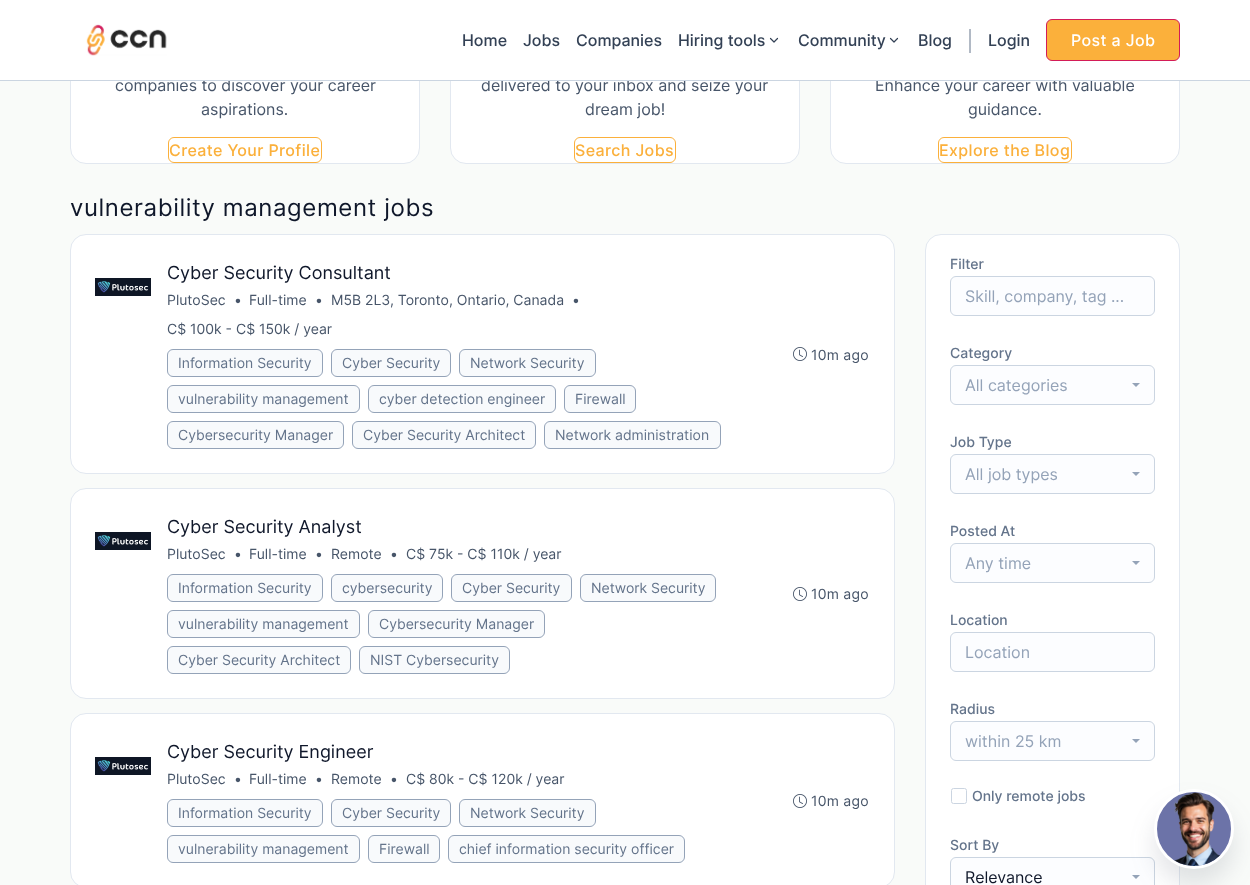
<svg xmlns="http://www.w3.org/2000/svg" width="1250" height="885">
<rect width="100%" height="100%" fill="#f9fbf9"/>
<rect x="70.5" y="-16.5" width="349" height="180" rx="15.5" fill="#fff" stroke="#e2e8f0"/>
<text x="115" y="91" style="font-family:Inter;font-size:16px;fill:#475569">companies to discover your career</text>
<rect x="450.5" y="-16.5" width="349" height="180" rx="15.5" fill="#fff" stroke="#e2e8f0"/>
<text x="481" y="91" style="font-family:Inter;font-size:16px;fill:#475569">delivered to your inbox and seize your</text>
<rect x="830.5" y="-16.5" width="349" height="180" rx="15.5" fill="#fff" stroke="#e2e8f0"/>
<text x="875" y="91" style="font-family:Inter;font-size:16px;fill:#475569">Enhance your career with valuable</text>
<rect width="1250" height="80" fill="#fff"/>
<rect y="80" width="1250" height="1" fill="#cbd5e1"/>
<image x="86" y="24" width="81" height="32" href="media/1.png"/>
<text x="462" y="46" style="font-family:Inter;font-size:16px;font-weight:500;fill:#334155">Home</text>
<text x="523" y="46" style="font-family:Inter;font-size:16px;font-weight:500;fill:#334155">Jobs</text>
<text x="576" y="46" style="font-family:Inter;font-size:16px;font-weight:500;fill:#334155">Companies</text>
<text x="678" y="46" style="font-family:Inter;font-size:16px;font-weight:500;fill:#334155">Hiring tools</text>
<path d="M770.5 38.5l3.5 3.5l3.5-3.5" fill="none" stroke="#334155" stroke-width="1.2" stroke-linecap="round" stroke-linejoin="round"/>
<text x="798" y="46" style="font-family:Inter;font-size:16px;font-weight:500;fill:#334155">Community</text>
<path d="M890.5 38.5l3.5 3.5l3.5-3.5" fill="none" stroke="#334155" stroke-width="1.2" stroke-linecap="round" stroke-linejoin="round"/>
<text x="918" y="46" style="font-family:Inter;font-size:16px;font-weight:500;fill:#334155">Blog</text>
<path d="M970 29v24" fill="none" stroke="#64748b"/>
<text x="988" y="46" style="font-family:Inter;font-size:16px;font-weight:500;fill:#334155">Login</text>
<rect x="1046.5" y="19.5" width="133" height="41" rx="5.5" fill="#fbb03b" stroke="#d31c58"/>
<text x="1071" y="46" style="font-family:Inter;font-size:16px;font-weight:500;letter-spacing:0.4px;fill:#fff">Post a Job</text>
<text x="201" y="115" style="font-family:Inter;font-size:16px;fill:#475569">aspirations.</text>
<rect x="168.5" y="137.5" width="153" height="25" rx="5.5" fill="none" stroke="#fbb03b"/>
<text x="169" y="156" style="font-family:Inter;font-size:16px;font-weight:500;letter-spacing:0.4px;fill:#fbb03b">Create Your Profile</text>
<text x="585" y="115" style="font-family:Inter;font-size:16px;fill:#475569">dream job!</text>
<rect x="574.5" y="137.5" width="101" height="25" rx="5.5" fill="none" stroke="#fbb03b"/>
<text x="575" y="156" style="font-family:Inter;font-size:16px;font-weight:500;letter-spacing:0.4px;fill:#fbb03b">Search Jobs</text>
<text x="968" y="115" style="font-family:Inter;font-size:16px;fill:#475569">guidance.</text>
<rect x="938.5" y="137.5" width="133" height="25" rx="5.5" fill="none" stroke="#fbb03b"/>
<text x="939" y="156" style="font-family:Inter;font-size:16px;font-weight:500;letter-spacing:0.4px;fill:#fbb03b">Explore the Blog</text>
<text x="70" y="216" style="font-family:Inter;font-size:24px;letter-spacing:0.6px;fill:#0f172a">vulnerability management jobs</text>
<rect x="70.5" y="234.5" width="824" height="239" rx="15.5" fill="#fff" stroke="#e2e8f0"/>
<image x="95" y="278" width="56" height="18" href="media/2.png"/>
<text x="167" y="279" style="font-family:Inter;font-size:18px;fill:#0f172a">Cyber Security Consultant</text>
<text x="167" y="305" style="font-family:Inter;font-size:14px;fill:#475569">PlutoSec</text>
<text x="234" y="305" style="font-family:Inter;font-size:14px;fill:#475569">•</text>
<text x="249" y="305" style="font-family:Inter;font-size:14px;fill:#475569">Full-time</text>
<text x="315" y="305" style="font-family:Inter;font-size:14px;fill:#475569">•</text>
<text x="331" y="305" style="font-family:Inter;font-size:14px;fill:#475569">M5B 2L3, Toronto, Ontario, Canada</text>
<text x="572" y="305" style="font-family:Inter;font-size:14px;fill:#475569">•</text>
<text x="167" y="334" style="font-family:Inter;font-size:14px;fill:#475569">C$ 100k - C$ 150k / year</text>
<rect x="167.5" y="349.5" width="155" height="27" rx="5.5" fill="#f8fafc" stroke="#94a3b8"/>
<text x="178" y="368" style="font-family:Inter;font-size:14px;fill:#64748b">Information Security</text>
<rect x="331.5" y="349.5" width="119" height="27" rx="5.5" fill="#f8fafc" stroke="#94a3b8"/>
<text x="342" y="368" style="font-family:Inter;font-size:14px;fill:#64748b">Cyber Security</text>
<rect x="459.5" y="349.5" width="136" height="27" rx="5.5" fill="#f8fafc" stroke="#94a3b8"/>
<text x="470" y="368" style="font-family:Inter;font-size:14px;fill:#64748b">Network Security</text>
<rect x="167.5" y="385.5" width="192" height="27" rx="5.5" fill="#f8fafc" stroke="#94a3b8"/>
<text x="178" y="404" style="font-family:Inter;font-size:14px;fill:#64748b">vulnerability management</text>
<rect x="368.5" y="385.5" width="187" height="27" rx="5.5" fill="#f8fafc" stroke="#94a3b8"/>
<text x="379" y="404" style="font-family:Inter;font-size:14px;fill:#64748b">cyber detection engineer</text>
<rect x="564.5" y="385.5" width="71" height="27" rx="5.5" fill="#f8fafc" stroke="#94a3b8"/>
<text x="575" y="404" style="font-family:Inter;font-size:14px;fill:#64748b">Firewall</text>
<rect x="167.5" y="421.5" width="176" height="27" rx="5.5" fill="#f8fafc" stroke="#94a3b8"/>
<text x="178" y="440" style="font-family:Inter;font-size:14px;fill:#64748b">Cybersecurity Manager</text>
<rect x="352.5" y="421.5" width="183" height="27" rx="5.5" fill="#f8fafc" stroke="#94a3b8"/>
<text x="363" y="440" style="font-family:Inter;font-size:14px;fill:#64748b">Cyber Security Architect</text>
<rect x="544.5" y="421.5" width="176" height="27" rx="5.5" fill="#f8fafc" stroke="#94a3b8"/>
<text x="555" y="440" style="font-family:Inter;font-size:14px;fill:#64748b">Network administration</text>
<image x="793" y="347" width="14" height="14" href="media/3.png"/>
<text x="811" y="360" style="font-family:Inter;font-size:14px;letter-spacing:0.25px;fill:#475569">10m ago</text>
<rect x="70.5" y="488.5" width="824" height="210" rx="15.5" fill="#fff" stroke="#e2e8f0"/>
<image x="95" y="532" width="56" height="18" href="media/2.png"/>
<text x="167" y="533" style="font-family:Inter;font-size:18px;fill:#0f172a">Cyber Security Analyst</text>
<text x="167" y="559" style="font-family:Inter;font-size:14px;fill:#475569">PlutoSec</text>
<text x="234" y="559" style="font-family:Inter;font-size:14px;fill:#475569">•</text>
<text x="249" y="559" style="font-family:Inter;font-size:14px;fill:#475569">Full-time</text>
<text x="315" y="559" style="font-family:Inter;font-size:14px;fill:#475569">•</text>
<text x="331" y="559" style="font-family:Inter;font-size:14px;fill:#475569">Remote</text>
<text x="390" y="559" style="font-family:Inter;font-size:14px;fill:#475569">•</text>
<text x="406" y="559" style="font-family:Inter;font-size:14px;fill:#475569">C$ 75k - C$ 110k / year</text>
<rect x="167.5" y="574.5" width="155" height="27" rx="5.5" fill="#f8fafc" stroke="#94a3b8"/>
<text x="178" y="593" style="font-family:Inter;font-size:14px;fill:#64748b">Information Security</text>
<rect x="331.5" y="574.5" width="111" height="27" rx="5.5" fill="#f8fafc" stroke="#94a3b8"/>
<text x="342" y="593" style="font-family:Inter;font-size:14px;fill:#64748b">cybersecurity</text>
<rect x="451.5" y="574.5" width="120" height="27" rx="5.5" fill="#f8fafc" stroke="#94a3b8"/>
<text x="462" y="593" style="font-family:Inter;font-size:14px;fill:#64748b">Cyber Security</text>
<rect x="580.5" y="574.5" width="135" height="27" rx="5.5" fill="#f8fafc" stroke="#94a3b8"/>
<text x="591" y="593" style="font-family:Inter;font-size:14px;fill:#64748b">Network Security</text>
<rect x="167.5" y="610.5" width="192" height="27" rx="5.5" fill="#f8fafc" stroke="#94a3b8"/>
<text x="178" y="629" style="font-family:Inter;font-size:14px;fill:#64748b">vulnerability management</text>
<rect x="368.5" y="610.5" width="176" height="27" rx="5.5" fill="#f8fafc" stroke="#94a3b8"/>
<text x="379" y="629" style="font-family:Inter;font-size:14px;fill:#64748b">Cybersecurity Manager</text>
<rect x="167.5" y="646.5" width="183" height="27" rx="5.5" fill="#f8fafc" stroke="#94a3b8"/>
<text x="178" y="665" style="font-family:Inter;font-size:14px;fill:#64748b">Cyber Security Architect</text>
<rect x="359.5" y="646.5" width="150" height="27" rx="5.5" fill="#f8fafc" stroke="#94a3b8"/>
<text x="370" y="665" style="font-family:Inter;font-size:14px;fill:#64748b">NIST Cybersecurity</text>
<image x="793" y="587" width="14" height="14" href="media/3.png"/>
<text x="811" y="599" style="font-family:Inter;font-size:14px;letter-spacing:0.25px;fill:#475569">10m ago</text>
<rect x="70.5" y="713.5" width="824" height="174" rx="15.5" fill="#fff" stroke="#e2e8f0"/>
<image x="95" y="757" width="56" height="18" href="media/4.png"/>
<text x="167" y="758" style="font-family:Inter;font-size:18px;fill:#0f172a">Cyber Security Engineer</text>
<text x="167" y="784" style="font-family:Inter;font-size:14px;fill:#475569">PlutoSec</text>
<text x="234" y="784" style="font-family:Inter;font-size:14px;fill:#475569">•</text>
<text x="249" y="784" style="font-family:Inter;font-size:14px;fill:#475569">Full-time</text>
<text x="315" y="784" style="font-family:Inter;font-size:14px;fill:#475569">•</text>
<text x="331" y="784" style="font-family:Inter;font-size:14px;fill:#475569">Remote</text>
<text x="390" y="784" style="font-family:Inter;font-size:14px;fill:#475569">•</text>
<text x="406" y="784" style="font-family:Inter;font-size:14px;fill:#475569">C$ 80k - C$ 120k / year</text>
<rect x="167.5" y="799.5" width="155" height="27" rx="5.5" fill="#f8fafc" stroke="#94a3b8"/>
<text x="178" y="818" style="font-family:Inter;font-size:14px;fill:#64748b">Information Security</text>
<rect x="331.5" y="799.5" width="119" height="27" rx="5.5" fill="#f8fafc" stroke="#94a3b8"/>
<text x="342" y="818" style="font-family:Inter;font-size:14px;fill:#64748b">Cyber Security</text>
<rect x="459.5" y="799.5" width="136" height="27" rx="5.5" fill="#f8fafc" stroke="#94a3b8"/>
<text x="470" y="818" style="font-family:Inter;font-size:14px;fill:#64748b">Network Security</text>
<rect x="167.5" y="835.5" width="192" height="27" rx="5.5" fill="#f8fafc" stroke="#94a3b8"/>
<text x="178" y="854" style="font-family:Inter;font-size:14px;fill:#64748b">vulnerability management</text>
<rect x="368.5" y="835.5" width="71" height="27" rx="5.5" fill="#f8fafc" stroke="#94a3b8"/>
<text x="379" y="854" style="font-family:Inter;font-size:14px;fill:#64748b">Firewall</text>
<rect x="448.5" y="835.5" width="236" height="27" rx="5.5" fill="#f8fafc" stroke="#94a3b8"/>
<text x="459" y="854" style="font-family:Inter;font-size:14px;fill:#64748b">chief information security officer</text>
<image x="793" y="794" width="14" height="14" href="media/3.png"/>
<text x="811" y="806" style="font-family:Inter;font-size:14px;letter-spacing:0.25px;fill:#475569">10m ago</text>
<rect x="925.5" y="234.5" width="254" height="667" rx="15.5" fill="#fff" stroke="#e2e8f0"/>
<text x="950" y="269" style="font-family:Inter;font-size:14px;font-weight:500;fill:#64748b">Filter</text>
<rect x="950.5" y="276.5" width="204" height="39" rx="5.5" fill="#fcfdff" stroke="#cbd5e1"/>
<text x="965" y="302" style="font-family:Inter;font-size:16px;fill:#94a3b8">Skill, company, tag ...</text>
<text x="950" y="358" style="font-family:Inter;font-size:14px;font-weight:500;fill:#64748b">Category</text>
<rect x="950.5" y="365.5" width="204" height="39" rx="5.5" fill="#fcfdff" stroke="#cbd5e1"/>
<text x="965" y="391" style="font-family:Inter;font-size:16px;fill:#94a3b8">All categories</text>
<path d="M1132 383h8l-4 4z" fill="#94a3b8"/>
<text x="950" y="447" style="font-family:Inter;font-size:14px;font-weight:500;fill:#64748b">Job Type</text>
<rect x="950.5" y="454.5" width="204" height="39" rx="5.5" fill="#fcfdff" stroke="#cbd5e1"/>
<text x="965" y="480" style="font-family:Inter;font-size:16px;fill:#94a3b8">All job types</text>
<path d="M1132 472h8l-4 4z" fill="#94a3b8"/>
<text x="950" y="536" style="font-family:Inter;font-size:14px;font-weight:500;fill:#64748b">Posted At</text>
<rect x="950.5" y="543.5" width="204" height="39" rx="5.5" fill="#fcfdff" stroke="#cbd5e1"/>
<text x="965" y="569" style="font-family:Inter;font-size:16px;fill:#94a3b8">Any time</text>
<path d="M1132 561h8l-4 4z" fill="#94a3b8"/>
<text x="950" y="625" style="font-family:Inter;font-size:14px;font-weight:500;fill:#64748b">Location</text>
<rect x="950.5" y="632.5" width="204" height="39" rx="5.5" fill="#fcfdff" stroke="#cbd5e1"/>
<text x="965" y="658" style="font-family:Inter;font-size:16px;fill:#94a3b8">Location</text>
<text x="950" y="714" style="font-family:Inter;font-size:14px;font-weight:500;fill:#64748b">Radius</text>
<rect x="950.5" y="721.5" width="204" height="39" rx="5.5" fill="#fcfdff" stroke="#cbd5e1"/>
<text x="965" y="747" style="font-family:Inter;font-size:16px;fill:#94a3b8">within 25 km</text>
<path d="M1132 739h8l-4 4z" fill="#94a3b8"/>
<rect x="951.5" y="788.5" width="15" height="15" rx="2" fill="none" stroke="#cbd5e1"/>
<text x="972" y="801" style="font-family:Inter;font-size:14px;font-weight:500;fill:#64748b">Only remote jobs</text>
<text x="950" y="850" style="font-family:Inter;font-size:14px;font-weight:500;fill:#64748b">Sort By</text>
<rect x="950.5" y="857.5" width="204" height="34" rx="5.5" fill="#fcfdff" stroke="#cbd5e1"/>
<text x="965" y="883" style="font-family:Inter;font-size:16px;fill:#0f172a">Relevance</text>
<path d="M1132 875h8l-4 4z" fill="#94a3b8"/>
<rect x="1154" y="805" width="80" height="80" rx="40" fill="#545f6f29" filter="blur(12px)"/>
<circle cx="1194" cy="829" r="38.5" fill="#6c73a8" stroke="#fff" stroke-width="3"/>
<image x="1174" y="792" width="47" height="74" href="media/5.png"/>
</svg>
